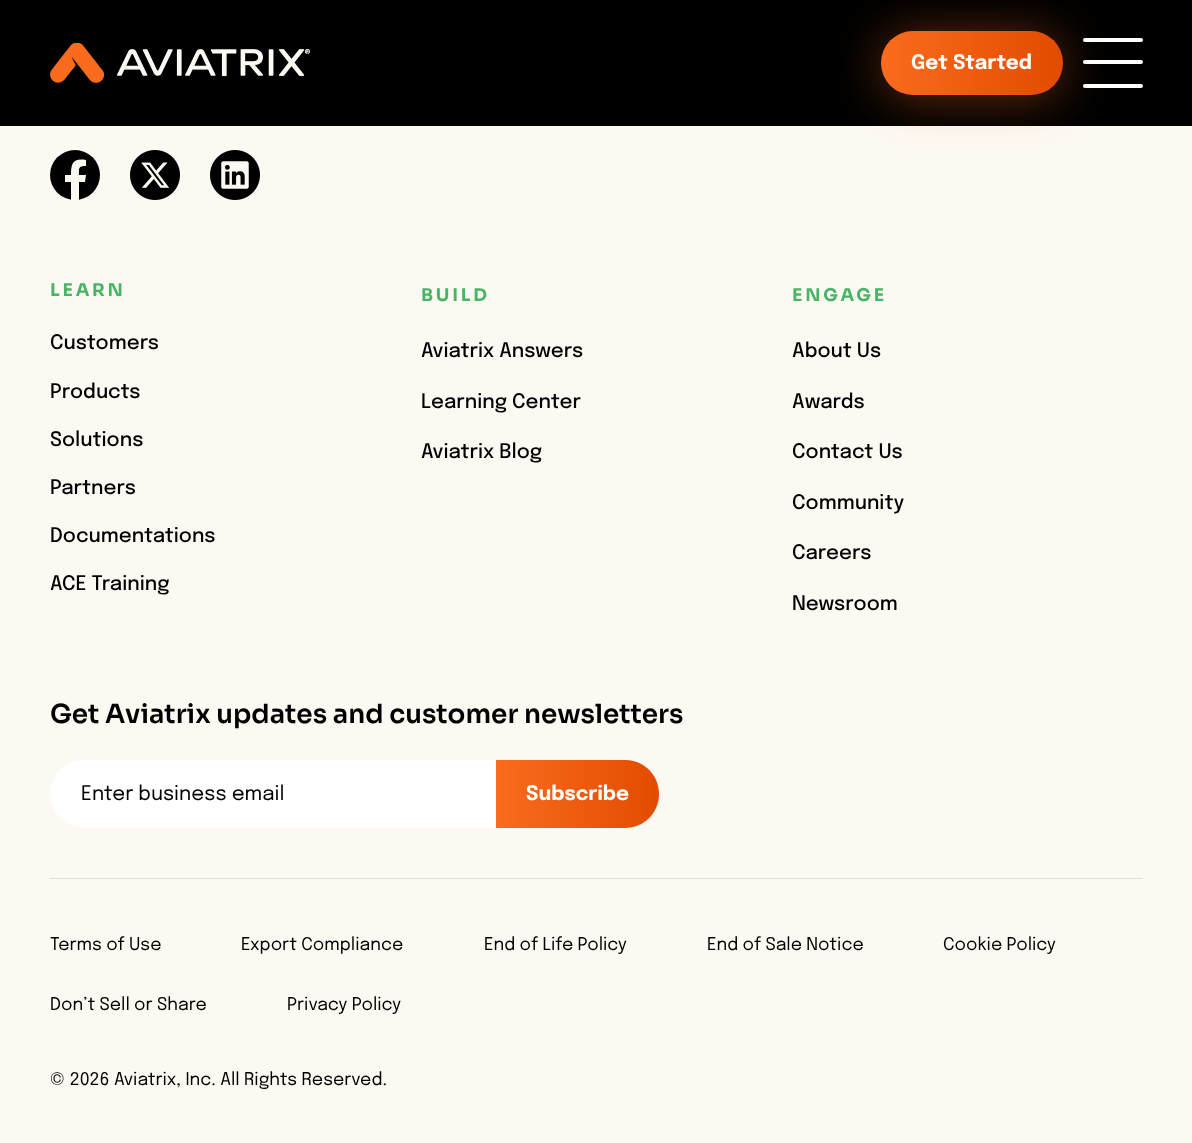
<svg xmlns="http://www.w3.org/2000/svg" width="1192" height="1143">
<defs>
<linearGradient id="g1" gradientUnits="userSpaceOnUse" x1="881" y1="63" x2="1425" y2="63"><stop offset="0" stop-color="#fa6b1e"/><stop offset="0.33" stop-color="#e24c01"/><stop offset="0.67" stop-color="#e24c01"/><stop offset="1" stop-color="#fa6b1e"/></linearGradient>
<linearGradient id="g2" gradientUnits="userSpaceOnUse" x1="496" y1="794" x2="659" y2="794"><stop offset="0" stop-color="#fa6b1e"/><stop offset="1" stop-color="#e24c01"/></linearGradient>
</defs>
<rect width="100%" height="100%" fill="#fcf9f3"/>
<rect width="1192" height="126" fill="#000"/>
<image x="50" y="43" width="260" height="40" href="media/1.png"/>
<rect x="881" y="34" width="182" height="64" rx="32" fill="#fa6b1e66" filter="blur(25px)"/>
<rect x="881" y="31" width="182" height="64" rx="32" fill="url(#g1)"/>
<text x="911" y="69" style="font-family:Epilogue;font-size:20px;font-weight:bold;fill:#fff">Get Started</text>
<rect x="1083" y="38" width="60" height="4" rx="2" fill="#fff"/>
<rect x="1083" y="60" width="60" height="4" rx="2" fill="#fff"/>
<rect x="1083" y="84" width="60" height="4" rx="2" fill="#fff"/>
<circle cx="75" cy="175" r="25" fill="#000"/>
<path d="M85 182l1-7h-7c0-7-1-9 7-9v-6c-13-2-15 3-15 15h-6v7h6v18h8v-18z" fill="#fcf9f3"/>
<image x="130" y="150" width="50" height="50" href="media/2.png"/>
<image x="210" y="150" width="50" height="50" href="media/3.png"/>
<text x="50" y="296" style="font-family:Sora;font-size:17.5px;font-weight:bold;letter-spacing:2.75px;fill:#47b565">LEARN</text>
<text x="50" y="349" style="font-family:Epilogue;font-size:20px;font-weight:500;fill:#000">Customers</text>
<text x="50" y="398" style="font-family:Epilogue;font-size:20px;font-weight:500;fill:#000">Products</text>
<text x="50" y="446" style="font-family:Epilogue;font-size:20px;font-weight:500;fill:#000">Solutions</text>
<text x="50" y="494" style="font-family:Epilogue;font-size:20px;font-weight:500;fill:#000">Partners</text>
<text x="50" y="542" style="font-family:Epilogue;font-size:20px;font-weight:500;fill:#000">Documentations</text>
<text x="50" y="590" style="font-family:Epilogue;font-size:20px;font-weight:500;fill:#000">ACE Training</text>
<text x="421" y="301" style="font-family:Sora;font-size:17.5px;font-weight:bold;letter-spacing:2.75px;fill:#47b565">BUILD</text>
<text x="421" y="357" style="font-family:Epilogue;font-size:20px;font-weight:500;fill:#000">Aviatrix Answers</text>
<text x="421" y="408" style="font-family:Epilogue;font-size:20px;font-weight:500;fill:#000">Learning Center</text>
<text x="421" y="458" style="font-family:Epilogue;font-size:20px;font-weight:500;fill:#000">Aviatrix Blog</text>
<text x="792" y="301" style="font-family:Sora;font-size:17.5px;font-weight:bold;letter-spacing:2.75px;fill:#47b565">ENGAGE</text>
<text x="792" y="357" style="font-family:Epilogue;font-size:20px;font-weight:500;fill:#000">About Us</text>
<text x="792" y="408" style="font-family:Epilogue;font-size:20px;font-weight:500;fill:#000">Awards</text>
<text x="792" y="458" style="font-family:Epilogue;font-size:20px;font-weight:500;fill:#000">Contact Us</text>
<text x="792" y="509" style="font-family:Epilogue;font-size:20px;font-weight:500;fill:#000">Community</text>
<text x="792" y="559" style="font-family:Epilogue;font-size:20px;font-weight:500;fill:#000">Careers</text>
<text x="792" y="610" style="font-family:Epilogue;font-size:20px;font-weight:500;fill:#000">Newsroom</text>
<text x="50" y="723" style="font-family:Sora;font-size:26.25px;font-weight:600;fill:#000">Get Aviatrix updates and customer newsletters</text>
<path d="M84 760.5h411.5v67h-411.5c-18.5 0-33.5-15-33.5-33.5c0-18.5 15-33.5 33.5-33.5z" fill="#fff" stroke="#fff"/>
<text x="81" y="800" style="font-family:Epilogue;font-size:20px;fill:#000">Enter business email</text>
<path d="M496 760h129c19 0 34 15 34 34c0 19-15 34-34 34h-129z" fill="url(#g2)"/>
<text x="526" y="800" style="font-family:Epilogue;font-size:20px;font-weight:bold;fill:#fff">Subscribe</text>
<rect x="50" y="878" width="1093" height="1" fill="#e3e0db"/>
<text x="50" y="950" style="font-family:Epilogue;font-size:17.5px;fill:#000">Terms of Use</text>
<text x="241" y="950" style="font-family:Epilogue;font-size:17.5px;fill:#000">Export Compliance</text>
<text x="484" y="950" style="font-family:Epilogue;font-size:17.5px;fill:#000">End of Life Policy</text>
<text x="707" y="950" style="font-family:Epilogue;font-size:17.5px;fill:#000">End of Sale Notice</text>
<text x="943" y="950" style="font-family:Epilogue;font-size:17.5px;fill:#000">Cookie Policy</text>
<text x="50" y="1010" style="font-family:Epilogue;font-size:17.5px;fill:#000">Don’t Sell or Share</text>
<text x="287" y="1010" style="font-family:Epilogue;font-size:17.5px;fill:#000">Privacy Policy</text>
<text x="50" y="1085" style="font-family:Epilogue;font-size:17.5px;fill:#000">© 2026 Aviatrix, Inc. All Rights Reserved.</text>
</svg>
